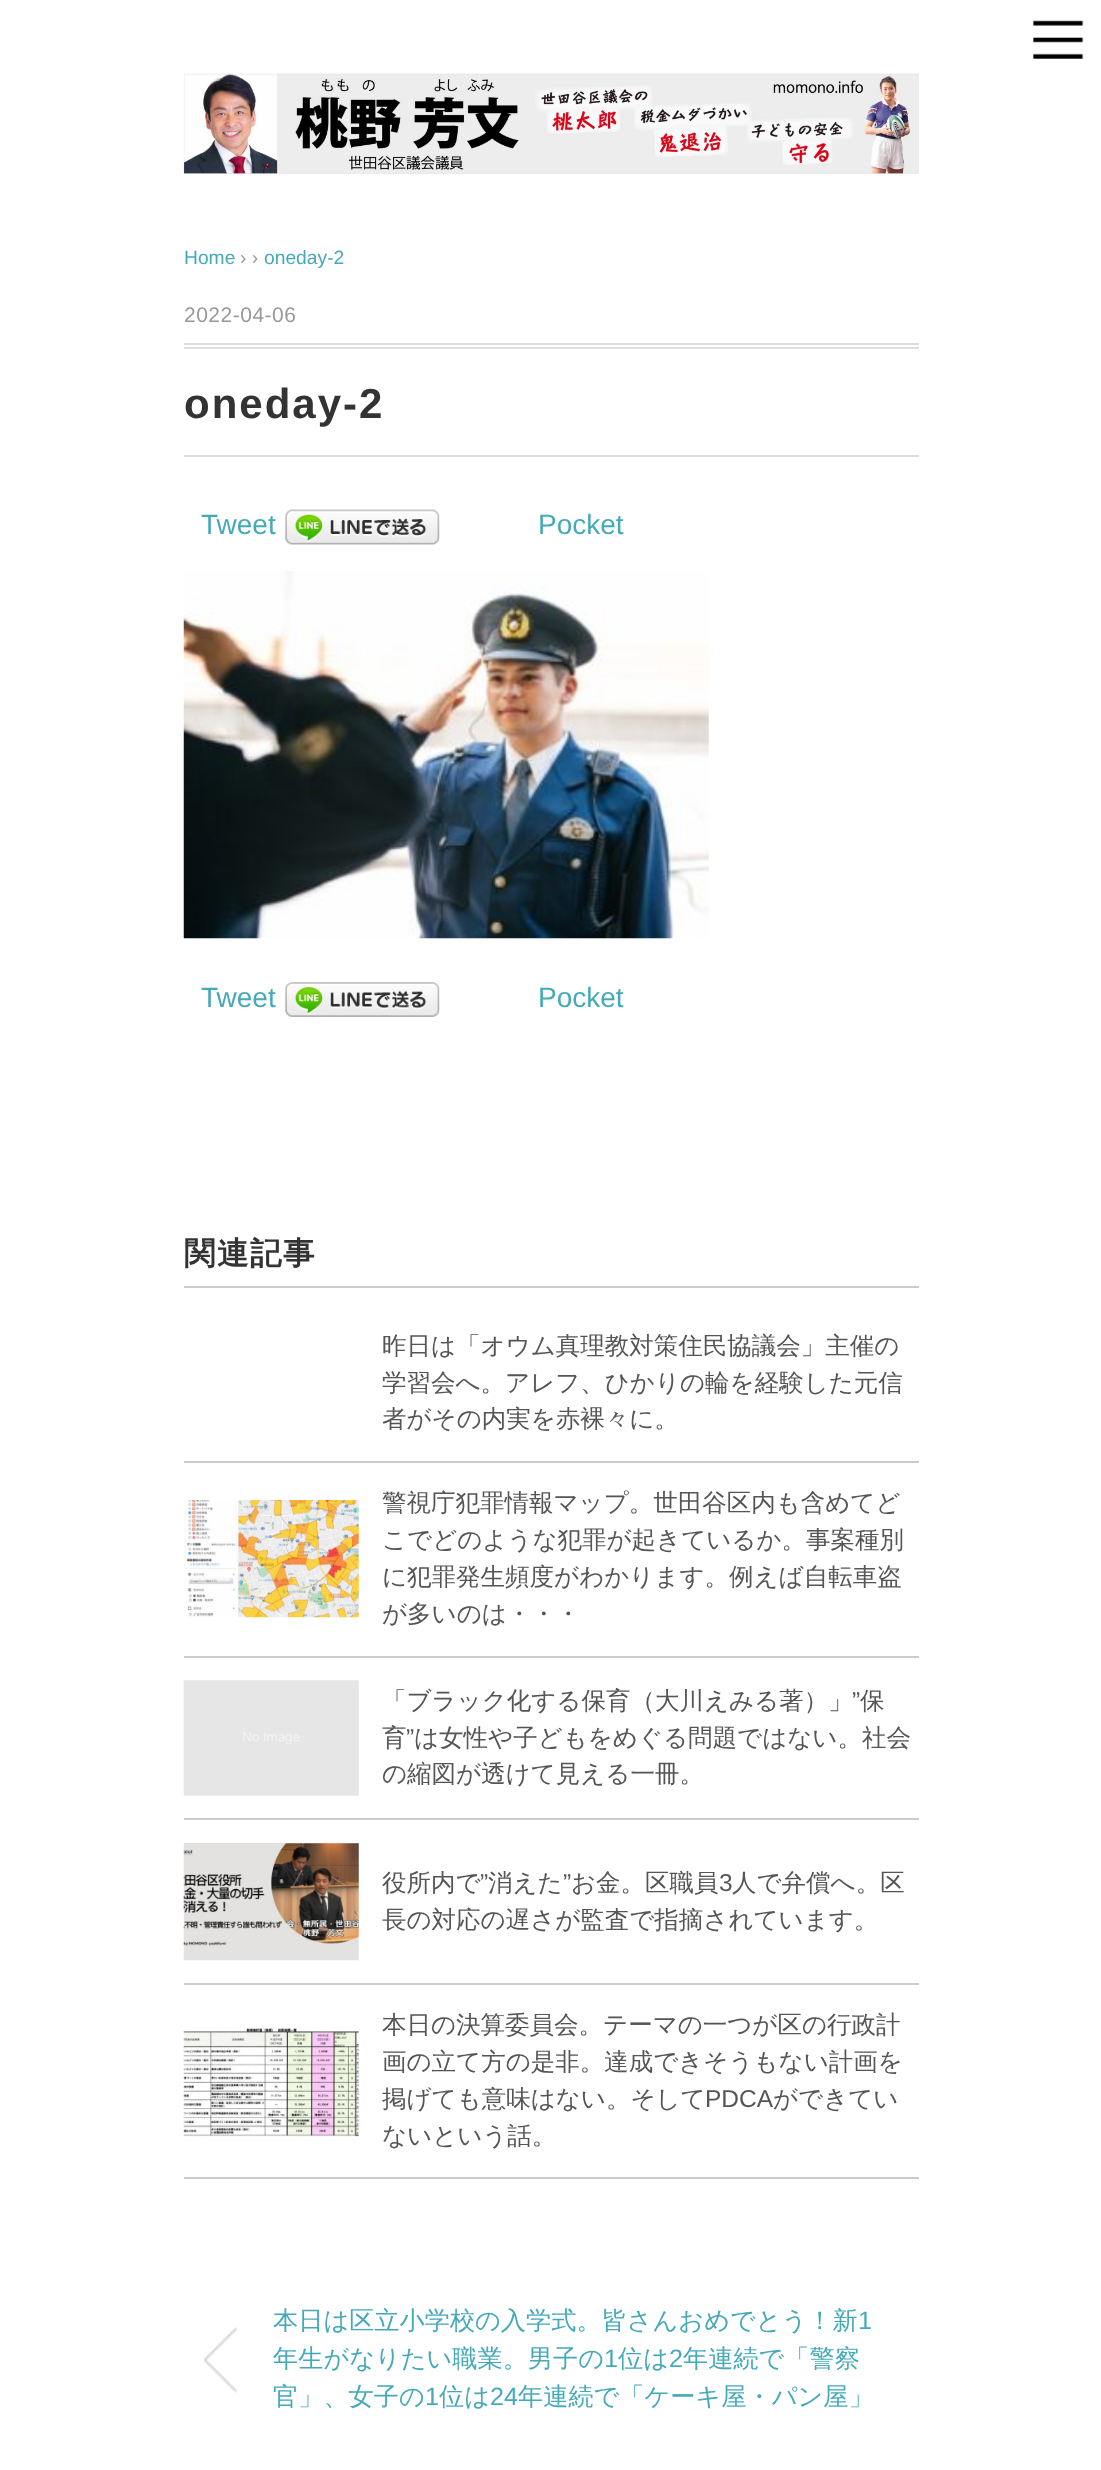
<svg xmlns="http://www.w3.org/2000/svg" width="1101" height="2470">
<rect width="100%" height="100%" fill="#fff"/>
<image x="1033" y="20" width="51" height="39" href="media/1.png"/>
<image x="183" y="73" width="736" height="101" href="media/2.png"/>
<text x="184" y="264" style="font-family:Liberation Sans;font-size:19.25px;fill:#45aab8">Home</text>
<text x="240" y="264" style="font-family:Liberation Sans;font-size:19.25px;fill:#999">› ›</text>
<text x="264" y="264" style="font-family:Liberation Sans;font-size:19.25px;fill:#45aab8">oneday-2</text>
<text x="184" y="322" style="font-family:Liberation Sans;font-size:21px;letter-spacing:0.5px;fill:#999">2022-04-06</text>
<rect x="184" y="343" width="735" height="2" fill="#ddd"/>
<rect x="184" y="347" width="735" height="2" fill="#ddd"/>
<rect x="184" y="455" width="735" height="2" fill="#ddd"/>
<text x="184" y="418" style="font-family:Liberation Sans;font-size:42px;font-weight:bold;letter-spacing:2px;fill:#333">oneday-2</text>
<text x="201" y="534" style="font-family:Liberation Sans;font-size:28px;fill:#45aab8">Tweet</text>
<image x="285" y="509" width="155" height="36" href="media/3.png"/>
<text x="538" y="534" style="font-family:Liberation Sans;font-size:28px;fill:#45aab8">Pocket</text>
<image x="183" y="571" width="526" height="368" href="media/4.png"/>
<text x="201" y="1007" style="font-family:Liberation Sans;font-size:28px;fill:#45aab8">Tweet</text>
<image x="285" y="982" width="155" height="35" href="media/5.png"/>
<text x="538" y="1007" style="font-family:Liberation Sans;font-size:28px;fill:#45aab8">Pocket</text>
<rect x="184" y="1286" width="735" height="2" fill="#ccc"/>
<text x="184" y="1264" style="font-family:WenQuanYi Zen Hei;font-size:31.5px;font-weight:bold;letter-spacing:1.5px;fill:#333">関連記事</text>
<rect x="184" y="1461" width="735" height="2" fill="#ccc"/>
<text x="382" y="1354" style="font-family:WenQuanYi Zen Hei;font-size:24.5px;font-weight:500;fill:#555">昨日は「オウム真理教対策住民協議会」主催の</text>
<text x="382" y="1391" style="font-family:WenQuanYi Zen Hei;font-size:24.5px;font-weight:500;fill:#555">学習会へ。アレフ、ひかりの輪を経験した元信</text>
<text x="382" y="1427" style="font-family:WenQuanYi Zen Hei;font-size:24.5px;font-weight:500;fill:#555">者がその内実を赤裸々に。</text>
<rect x="184" y="1656" width="735" height="2" fill="#ccc"/>
<image x="184" y="1500" width="175" height="118" href="media/6.png"/>
<text x="382" y="1511" style="font-family:WenQuanYi Zen Hei;font-size:24.5px;font-weight:500;fill:#555">警視庁犯罪情報マップ。世田谷区内も含めてど</text>
<text x="382" y="1548" style="font-family:WenQuanYi Zen Hei;font-size:24.5px;font-weight:500;fill:#555">こでどのような犯罪が起きているか。事案種別</text>
<text x="382" y="1585" style="font-family:WenQuanYi Zen Hei;font-size:24.5px;font-weight:500;fill:#555">に犯罪発生頻度がわかります。例えば自転車盗</text>
<text x="382" y="1622" style="font-family:WenQuanYi Zen Hei;font-size:24.5px;font-weight:500;fill:#555">が多いのは・・・</text>
<rect x="184" y="1818" width="735" height="2" fill="#ccc"/>
<image x="183" y="1680" width="176" height="116" href="media/7.png"/>
<text x="382" y="1709" style="font-family:WenQuanYi Zen Hei;font-size:24.5px;font-weight:500;fill:#555">「ブラック化する保育（大川えみる著）」</text>
<text x="852" y="1709" style="font-family:Liberation Sans;font-size:24.5px;fill:#555">”</text>
<text x="860" y="1709" style="font-family:WenQuanYi Zen Hei;font-size:24.5px;font-weight:500;fill:#555">保</text>
<text x="382" y="1746" style="font-family:WenQuanYi Zen Hei;font-size:24.5px;font-weight:500;fill:#555">育</text>
<text x="406" y="1746" style="font-family:Liberation Sans;font-size:24.5px;fill:#555">”</text>
<text x="414" y="1746" style="font-family:WenQuanYi Zen Hei;font-size:24.5px;font-weight:500;fill:#555">は女性や子どもをめぐる問題ではない。社会</text>
<text x="382" y="1782" style="font-family:WenQuanYi Zen Hei;font-size:24.5px;font-weight:500;fill:#555">の縮図が透けて見える一冊。</text>
<rect x="184" y="1983" width="735" height="2" fill="#ccc"/>
<image x="183" y="1843" width="176" height="118" href="media/8.png"/>
<text x="382" y="1891" style="font-family:WenQuanYi Zen Hei;font-size:24.5px;font-weight:500;fill:#555">役所内で</text>
<text x="480" y="1891" style="font-family:Liberation Sans;font-size:24.5px;fill:#555">”</text>
<text x="488" y="1891" style="font-family:WenQuanYi Zen Hei;font-size:24.5px;font-weight:500;fill:#555">消えた</text>
<text x="563" y="1891" style="font-family:Liberation Sans;font-size:24.5px;fill:#555">”</text>
<text x="571" y="1891" style="font-family:WenQuanYi Zen Hei;font-size:24.5px;font-weight:500;fill:#555">お金。区職員</text>
<text x="719" y="1891" style="font-family:Liberation Sans;font-size:24.5px;fill:#555">3</text>
<text x="732" y="1891" style="font-family:WenQuanYi Zen Hei;font-size:24.5px;font-weight:500;fill:#555">人で弁償へ。区</text>
<text x="382" y="1928" style="font-family:WenQuanYi Zen Hei;font-size:24.5px;font-weight:500;fill:#555">長の対応の遅さが監査で指摘されています。</text>
<rect x="184" y="2177" width="735" height="2" fill="#ccc"/>
<image x="183" y="2027" width="176" height="110" href="media/9.png"/>
<text x="382" y="2033" style="font-family:WenQuanYi Zen Hei;font-size:24.5px;font-weight:500;fill:#555">本日の決算委員会。テーマの一つが区の行政計</text>
<text x="382" y="2070" style="font-family:WenQuanYi Zen Hei;font-size:24.5px;font-weight:500;fill:#555">画の立て方の是非。達成できそうもない計画を</text>
<text x="382" y="2107" style="font-family:WenQuanYi Zen Hei;font-size:24.5px;font-weight:500;fill:#555">掲げても意味はない。そして</text>
<text x="705" y="2107" style="font-family:Liberation Sans;font-size:24.5px;fill:#555">PDCA</text>
<text x="773" y="2107" style="font-family:WenQuanYi Zen Hei;font-size:24.5px;font-weight:500;fill:#555">ができてい</text>
<text x="382" y="2144" style="font-family:WenQuanYi Zen Hei;font-size:24.5px;font-weight:500;fill:#555">ないという話。</text>
<image x="203" y="2327" width="35" height="66" href="media/10.png"/>
<text x="273" y="2329" style="font-family:WenQuanYi Zen Hei;font-size:25.2px;font-weight:500;fill:#45aab8">本日は区立小学校の入学式。皆さんおめでとう！新</text>
<text x="858" y="2329" style="font-family:Liberation Sans;font-size:25.2px;fill:#45aab8">1</text>
<text x="273" y="2367" style="font-family:WenQuanYi Zen Hei;font-size:25.2px;font-weight:500;fill:#45aab8">年生がなりたい職業。男子の</text>
<text x="604" y="2367" style="font-family:Liberation Sans;font-size:25.2px;fill:#45aab8">1</text>
<text x="618" y="2367" style="font-family:WenQuanYi Zen Hei;font-size:25.2px;font-weight:500;fill:#45aab8">位は</text>
<text x="669" y="2367" style="font-family:Liberation Sans;font-size:25.2px;fill:#45aab8">2</text>
<text x="683" y="2367" style="font-family:WenQuanYi Zen Hei;font-size:25.2px;font-weight:500;fill:#45aab8">年連続で「警察</text>
<text x="273" y="2405" style="font-family:WenQuanYi Zen Hei;font-size:25.2px;font-weight:500;fill:#45aab8">官」、女子の</text>
<text x="425" y="2405" style="font-family:Liberation Sans;font-size:25.2px;fill:#45aab8">1</text>
<text x="439" y="2405" style="font-family:WenQuanYi Zen Hei;font-size:25.2px;font-weight:500;fill:#45aab8">位は</text>
<text x="490" y="2405" style="font-family:Liberation Sans;font-size:25.2px;fill:#45aab8">24</text>
<text x="518" y="2405" style="font-family:WenQuanYi Zen Hei;font-size:25.2px;font-weight:500;fill:#45aab8">年連続で「ケーキ屋・パン屋」</text>
</svg>
